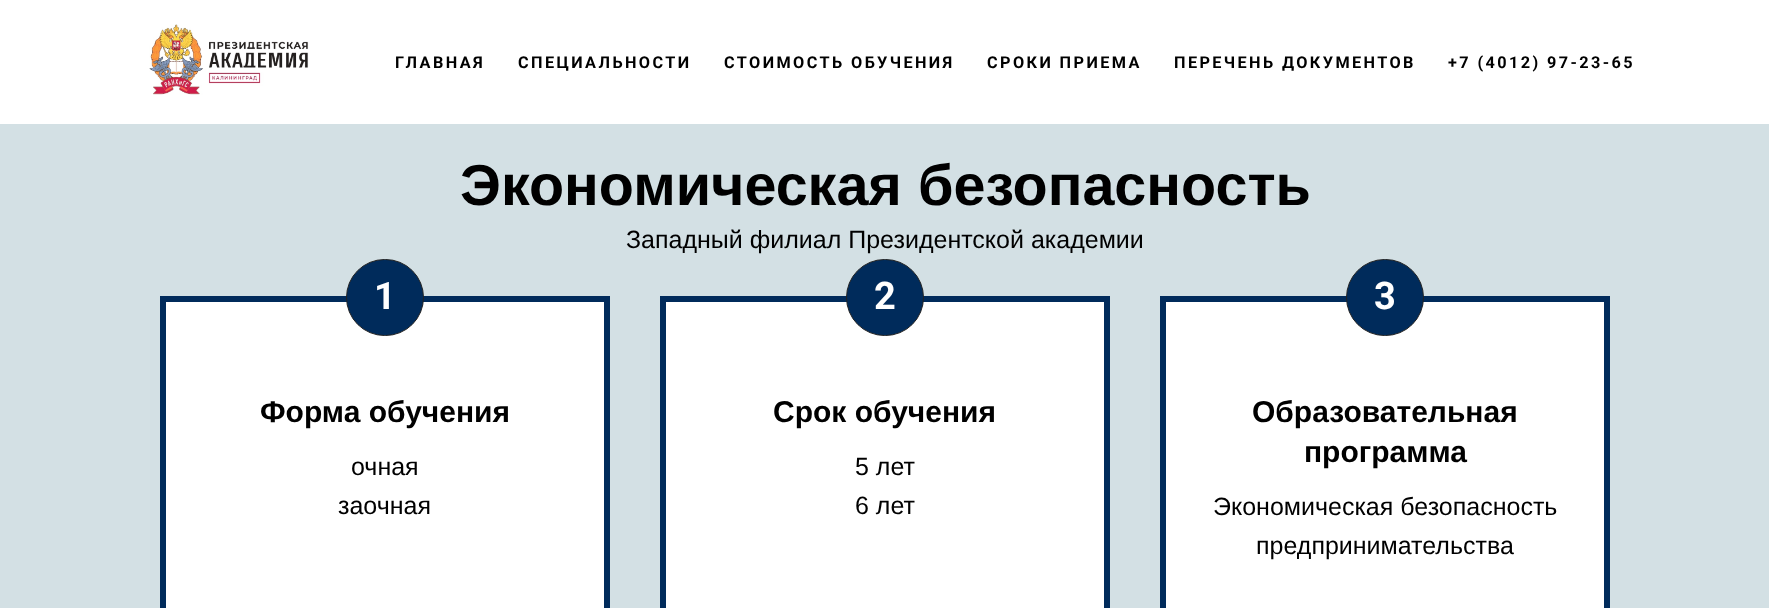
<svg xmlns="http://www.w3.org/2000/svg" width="1769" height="608">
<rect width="100%" height="100%" fill="#d3e0e4"/>
<rect width="1769" height="124" fill="#fff"/>
<image x="149" y="24" width="160" height="71" href="media/1.png"/>
<text x="395" y="68" style="font-family:Roboto;font-size:16.25px;font-weight:bold;letter-spacing:2.4px;fill:#000">ГЛАВНАЯ</text>
<text x="518" y="68" style="font-family:Roboto;font-size:16.25px;font-weight:bold;letter-spacing:2.4px;fill:#000">СПЕЦИАЛЬНОСТИ</text>
<text x="724" y="68" style="font-family:Roboto;font-size:16.25px;font-weight:bold;letter-spacing:2.4px;fill:#000">СТОИМОСТЬ ОБУЧЕНИЯ</text>
<text x="987" y="68" style="font-family:Roboto;font-size:16.25px;font-weight:bold;letter-spacing:2.4px;fill:#000">СРОКИ ПРИЕМА</text>
<text x="1174" y="68" style="font-family:Roboto;font-size:16.25px;font-weight:bold;letter-spacing:2.4px;fill:#000">ПЕРЕЧЕНЬ ДОКУМЕНТОВ</text>
<text x="1448" y="68" style="font-family:Roboto;font-size:16.25px;font-weight:bold;letter-spacing:2.4px;fill:#000">+7 (4012) 97-23-65</text>
<text x="460" y="205" style="font-family:Liberation Sans;font-size:57.5px;font-weight:bold;fill:#000">Экономическая безопасность</text>
<text x="626" y="248" style="font-family:Liberation Sans;font-size:25px;fill:#000">Западный филиал Президентской академии</text>
<rect x="163" y="299" width="444" height="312" fill="#fff" stroke="#002b5b" stroke-width="6"/>
<rect x="346.5" y="259.5" width="77" height="76" rx="38" fill="#002b5b" stroke="#222"/>
<text x="374" y="309" style="font-family:Roboto;font-size:38px;font-weight:bold;fill:#fff">1</text>
<text x="260" y="422" style="font-family:Liberation Sans;font-size:30px;font-weight:bold;fill:#000">Форма обучения</text>
<text x="351" y="475" style="font-family:Liberation Sans;font-size:25px;fill:#000">очная</text>
<text x="338" y="514" style="font-family:Liberation Sans;font-size:25px;fill:#000">заочная</text>
<rect x="663" y="299" width="444" height="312" fill="#fff" stroke="#002b5b" stroke-width="6"/>
<rect x="846.5" y="259.5" width="77" height="76" rx="38" fill="#002b5b" stroke="#222"/>
<text x="874" y="309" style="font-family:Roboto;font-size:38px;font-weight:bold;fill:#fff">2</text>
<text x="773" y="422" style="font-family:Liberation Sans;font-size:30px;font-weight:bold;fill:#000">Срок обучения</text>
<text x="855" y="475" style="font-family:Liberation Sans;font-size:25px;fill:#000">5 лет</text>
<text x="855" y="514" style="font-family:Liberation Sans;font-size:25px;fill:#000">6 лет</text>
<rect x="1163" y="299" width="444" height="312" fill="#fff" stroke="#002b5b" stroke-width="6"/>
<rect x="1346.5" y="259.5" width="77" height="76" rx="38" fill="#002b5b" stroke="#222"/>
<text x="1374" y="309" style="font-family:Roboto;font-size:38px;font-weight:bold;fill:#fff">3</text>
<text x="1252" y="422" style="font-family:Liberation Sans;font-size:30px;font-weight:bold;fill:#000">Образовательная</text>
<text x="1304" y="462" style="font-family:Liberation Sans;font-size:30px;font-weight:bold;fill:#000">программа</text>
<text x="1213" y="515" style="font-family:Liberation Sans;font-size:25px;fill:#000">Экономическая безопасность</text>
<text x="1256" y="554" style="font-family:Liberation Sans;font-size:25px;fill:#000">предпринимательства</text>
</svg>
